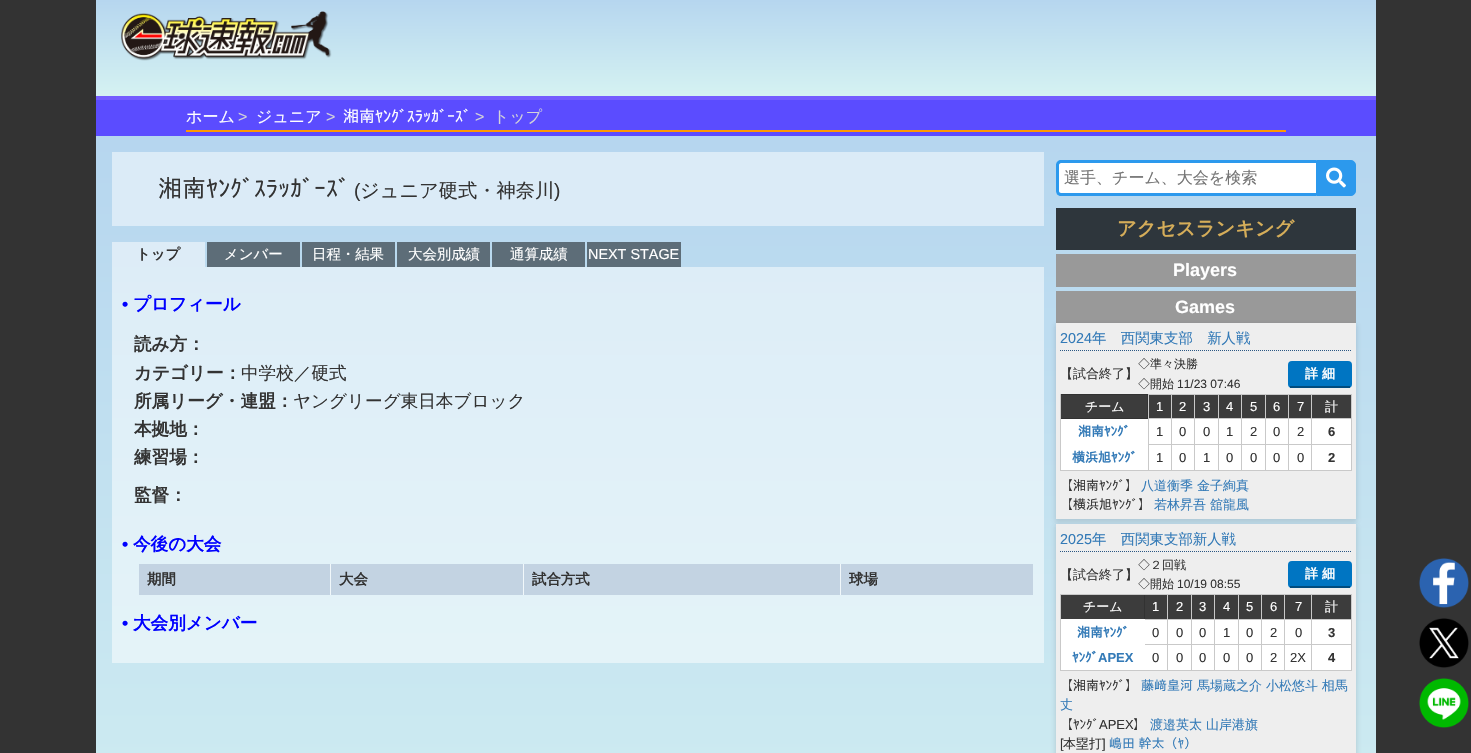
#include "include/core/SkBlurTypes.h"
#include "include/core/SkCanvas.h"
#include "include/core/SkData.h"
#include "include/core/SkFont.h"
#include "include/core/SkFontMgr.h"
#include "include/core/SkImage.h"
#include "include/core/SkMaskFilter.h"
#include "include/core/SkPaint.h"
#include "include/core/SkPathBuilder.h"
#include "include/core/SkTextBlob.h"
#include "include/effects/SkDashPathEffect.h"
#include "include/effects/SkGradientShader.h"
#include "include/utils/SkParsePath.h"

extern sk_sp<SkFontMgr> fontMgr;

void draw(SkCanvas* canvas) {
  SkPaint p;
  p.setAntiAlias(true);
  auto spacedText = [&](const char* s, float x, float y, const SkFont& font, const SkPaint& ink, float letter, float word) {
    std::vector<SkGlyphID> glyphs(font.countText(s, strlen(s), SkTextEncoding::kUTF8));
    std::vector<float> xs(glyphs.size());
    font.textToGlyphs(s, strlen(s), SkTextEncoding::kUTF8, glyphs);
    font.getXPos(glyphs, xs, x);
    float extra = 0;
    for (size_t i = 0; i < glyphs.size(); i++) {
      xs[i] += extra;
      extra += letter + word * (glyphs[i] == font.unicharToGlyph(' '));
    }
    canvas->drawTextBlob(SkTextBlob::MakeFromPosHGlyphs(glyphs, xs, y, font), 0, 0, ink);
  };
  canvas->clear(SkColorSetRGB(51, 51, 51));
  {
    const SkColor colors[] = {SkColorSetRGB(182, 214, 239), SkColorSetRGB(213, 242, 242)};
    const float stops[] = {0, 1};
    const SkPoint ends[] = {{736, 0}, {736, 96}};
    p.setShader(SkGradientShader::MakeLinear(ends, colors, stops, 2, SkTileMode::kClamp));
    p.setAlpha(255);
  }
  canvas->drawRect(SkRect::MakeLTRB(96, 0, 1376, 96), p);
  p.setShader(nullptr);
  p.setColor(SkColorSetRGB(116, 93, 255));
  canvas->drawRect(SkRect::MakeLTRB(96, 96, 1376, 100), p);
  canvas->drawImageRect(SkImages::DeferredFromEncodedData(SkData::MakeFromFileName("images/1.png")), SkRect::MakeLTRB(121, 11, 332, 61), SkSamplingOptions());
  p.setColor(SkColorSetRGB(91, 76, 255));
  canvas->drawRect(SkRect::MakeLTRB(96, 100, 1376, 136), p);
  p.setColor(SkColorSetRGB(255, 153, 0));
  canvas->drawRect(SkRect::MakeLTRB(186, 130, 1286, 132), p);
  {
    const SkColor colors[] = {SkColorSetRGB(182, 214, 239), SkColorSetRGB(213, 242, 242)};
    const float stops[] = {0, 1};
    const SkPoint ends[] = {{736, 136}, {736, 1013}};
    p.setShader(SkGradientShader::MakeLinear(ends, colors, stops, 2, SkTileMode::kClamp));
    p.setAlpha(255);
  }
  canvas->drawRect(SkRect::MakeLTRB(96, 136, 1376, 753), p);
  {
    const SkColor colors[] = {SkColorSetRGB(219, 235, 247), SkColorSetRGB(234, 249, 249)};
    const float stops[] = {0, 1};
    const SkPoint ends[] = {{736, 136}, {736, 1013}};
    p.setShader(SkGradientShader::MakeLinear(ends, colors, stops, 2, SkTileMode::kClamp));
    p.setAlpha(255);
  }
  canvas->drawRect(SkRect::MakeLTRB(112, 267, 1044, 663), p);
  p.setShader(nullptr);
  p.setColor(SkColorSetRGB(219, 235, 247));
  canvas->drawRect(SkRect::MakeLTRB(112, 152, 1044, 226), p);
  p.setColor(SkColorSetRGB(221, 236, 247));
  canvas->drawRect(SkRect::MakeLTRB(112, 242, 205, 267), p);
  p.setColor(SkColorSetRGB(93, 109, 120));
  canvas->drawRect(SkRect::MakeLTRB(207, 242, 300, 267), p);
  canvas->drawRect(SkRect::MakeLTRB(302, 242, 395, 267), p);
  canvas->drawRect(SkRect::MakeLTRB(397, 242, 490, 267), p);
  canvas->drawRect(SkRect::MakeLTRB(492, 242, 585, 267), p);
  canvas->drawRect(SkRect::MakeLTRB(587, 242, 681, 267), p);
  p.setColor(SkColorSetRGB(241, 248, 251));
  canvas->drawRect(SkRect::MakeLTRB(330, 564, 841, 595), p);
  p.setColor(SkColorSetRGB(195, 211, 226));
  canvas->drawRect(SkRect::MakeLTRB(139, 564, 330, 595), p);
  canvas->drawRect(SkRect::MakeLTRB(331, 564, 523, 595), p);
  canvas->drawRect(SkRect::MakeLTRB(524, 564, 840, 595), p);
  canvas->drawRect(SkRect::MakeLTRB(841, 564, 1033, 595), p);
  p.setColor(SK_ColorWHITE);
  canvas->drawPath(SkPathBuilder().moveTo(1061, 160).lineTo(1316, 160).lineTo(1316, 196).lineTo(1061, 196).cubicTo(1058, 196, 1056, 194, 1056, 191).lineTo(1056, 165).cubicTo(1056, 162, 1058, 160, 1061, 160).close().detach(), p);
  p.setColor(SkColorSetRGB(44, 153, 237));
  canvas->drawPath(SkPathBuilder(SkPathFillType::kEvenOdd).moveTo(1061, 160).lineTo(1316, 160).lineTo(1316, 196).lineTo(1061, 196).cubicTo(1058, 196, 1056, 194, 1056, 191).lineTo(1056, 165).cubicTo(1056, 162, 1058, 160, 1061, 160).close().moveTo(1061, 163).lineTo(1316, 163).lineTo(1316, 193).lineTo(1061, 193).cubicTo(1060, 193, 1059, 192, 1059, 191).lineTo(1059, 165).cubicTo(1059, 164, 1060, 163, 1061, 163).close().detach(), p);
  canvas->drawPath(SkPathBuilder().moveTo(1316.5f, 160.5f).lineTo(1351, 160.5f).cubicTo(1353.5f, 160.5f, 1355.5f, 162.5f, 1355.5f, 165).lineTo(1355.5f, 191).cubicTo(1355.5f, 193.5f, 1353.5f, 195.5f, 1351, 195.5f).lineTo(1316.5f, 195.5f).close().detach(), p);
  p.setStyle(SkPaint::kStroke_Style);
  p.setStrokeWidth(1);
  canvas->drawPath(SkPathBuilder().moveTo(1316.5f, 160.5f).lineTo(1351, 160.5f).cubicTo(1353.5f, 160.5f, 1355.5f, 162.5f, 1355.5f, 165).lineTo(1355.5f, 191).cubicTo(1355.5f, 193.5f, 1353.5f, 195.5f, 1351, 195.5f).lineTo(1316.5f, 195.5f).close().detach(), p);
  canvas->drawImageRect(SkImages::DeferredFromEncodedData(SkData::MakeFromFileName("images/2.png")), SkRect::MakeLTRB(1326, 167, 1346, 188), SkSamplingOptions());
  p.setStyle(SkPaint::kFill_Style);
  p.setColor(SkColorSetRGB(46, 54, 60));
  canvas->drawRect(SkRect::MakeLTRB(1056, 208, 1356, 250), p);
  p.setColor(SkColorSetRGB(153, 153, 153));
  canvas->drawRect(SkRect::MakeLTRB(1056, 254, 1356, 287), p);
  canvas->drawRect(SkRect::MakeLTRB(1056, 291, 1356, 323), p);
  p.setColor(SkColorSetARGB(41, 64, 60, 67));
  p.setMaskFilter(SkMaskFilter::MakeBlur(kNormal_SkBlurStyle, 2.5f));
  canvas->drawRect(SkRect::MakeLTRB(1055, 324, 1357, 522), p);
  p.setMaskFilter(nullptr);
  p.setColor(SkColorSetRGB(238, 238, 238));
  canvas->drawRect(SkRect::MakeLTRB(1056, 323, 1356, 519), p);
  p.setColor(SkColorSetRGB(60, 60, 60));
  canvas->drawRect(SkRect::MakeLTRB(1061, 395, 1147, 418), p);
  p.setStyle(SkPaint::kStroke_Style);
  p.setColor(SkColorSetRGB(43, 87, 131));
  p.setPathEffect(SkDashPathEffect::Make({{1, 1}}, 0));
  canvas->drawPath(SkPathBuilder().moveTo(1060, 350.5f).lineTo(1352, 350.5f).detach(), p);
  p.setPathEffect(nullptr);
  p.setStyle(SkPaint::kFill_Style);
  p.setColor(SkColorSetRGB(0, 117, 194));
  canvas->drawRoundRect(SkRect::MakeLTRB(1288, 361, 1352, 388), 4, 4, p);
  p.setColor(SkColorSetRGB(0, 76, 127));
  canvas->drawRect(SkRect::MakeLTRB(1290, 386, 1350, 388), p);
  p.setColor(SkColorSetRGB(201, 201, 201));
  canvas->drawRect(SkRect::MakeLTRB(1311, 394, 1352, 395), p);
  canvas->drawRect(SkRect::MakeLTRB(1311, 418, 1352, 419), p);
  canvas->drawRect(SkRect::MakeLTRB(1311, 444, 1352, 445), p);
  canvas->drawRect(SkRect::MakeLTRB(1351, 444, 1352, 471), p);
  canvas->drawRect(SkRect::MakeLTRB(1311, 470, 1352, 471), p);
  canvas->drawRect(SkRect::MakeLTRB(1311, 444, 1312, 471), p);
  canvas->drawRect(SkRect::MakeLTRB(1288, 444, 1312, 445), p);
  canvas->drawRect(SkRect::MakeLTRB(1311, 418, 1312, 445), p);
  canvas->drawRect(SkRect::MakeLTRB(1288, 418, 1312, 419), p);
  canvas->drawRect(SkRect::MakeLTRB(1311, 394, 1312, 419), p);
  canvas->drawRect(SkRect::MakeLTRB(1288, 394, 1312, 395), p);
  canvas->drawRect(SkRect::MakeLTRB(1288, 470, 1312, 471), p);
  canvas->drawRect(SkRect::MakeLTRB(1288, 444, 1289, 471), p);
  canvas->drawRect(SkRect::MakeLTRB(1265, 444, 1289, 445), p);
  canvas->drawRect(SkRect::MakeLTRB(1288, 418, 1289, 445), p);
  canvas->drawRect(SkRect::MakeLTRB(1265, 418, 1289, 419), p);
  canvas->drawRect(SkRect::MakeLTRB(1288, 394, 1289, 419), p);
  canvas->drawRect(SkRect::MakeLTRB(1265, 394, 1289, 395), p);
  canvas->drawRect(SkRect::MakeLTRB(1265, 470, 1289, 471), p);
  canvas->drawRect(SkRect::MakeLTRB(1265, 444, 1266, 471), p);
  canvas->drawRect(SkRect::MakeLTRB(1241, 444, 1266, 445), p);
  canvas->drawRect(SkRect::MakeLTRB(1265, 418, 1266, 445), p);
  canvas->drawRect(SkRect::MakeLTRB(1241, 418, 1266, 419), p);
  canvas->drawRect(SkRect::MakeLTRB(1265, 394, 1266, 419), p);
  canvas->drawRect(SkRect::MakeLTRB(1241, 394, 1266, 395), p);
  canvas->drawRect(SkRect::MakeLTRB(1241, 470, 1266, 471), p);
  canvas->drawRect(SkRect::MakeLTRB(1241, 444, 1242, 471), p);
  canvas->drawRect(SkRect::MakeLTRB(1218, 444, 1242, 445), p);
  canvas->drawRect(SkRect::MakeLTRB(1241, 418, 1242, 445), p);
  canvas->drawRect(SkRect::MakeLTRB(1218, 418, 1242, 419), p);
  canvas->drawRect(SkRect::MakeLTRB(1241, 394, 1242, 419), p);
  canvas->drawRect(SkRect::MakeLTRB(1218, 394, 1242, 395), p);
  canvas->drawRect(SkRect::MakeLTRB(1218, 470, 1242, 471), p);
  canvas->drawRect(SkRect::MakeLTRB(1218, 444, 1219, 471), p);
  canvas->drawRect(SkRect::MakeLTRB(1194, 444, 1219, 445), p);
  canvas->drawRect(SkRect::MakeLTRB(1218, 418, 1219, 445), p);
  canvas->drawRect(SkRect::MakeLTRB(1194, 418, 1219, 419), p);
  canvas->drawRect(SkRect::MakeLTRB(1218, 394, 1219, 419), p);
  canvas->drawRect(SkRect::MakeLTRB(1194, 394, 1219, 395), p);
  canvas->drawRect(SkRect::MakeLTRB(1194, 470, 1219, 471), p);
  canvas->drawRect(SkRect::MakeLTRB(1194, 444, 1195, 471), p);
  canvas->drawRect(SkRect::MakeLTRB(1171, 444, 1195, 445), p);
  canvas->drawRect(SkRect::MakeLTRB(1194, 418, 1195, 445), p);
  canvas->drawRect(SkRect::MakeLTRB(1171, 418, 1195, 419), p);
  canvas->drawRect(SkRect::MakeLTRB(1194, 394, 1195, 419), p);
  canvas->drawRect(SkRect::MakeLTRB(1171, 394, 1195, 395), p);
  canvas->drawRect(SkRect::MakeLTRB(1171, 470, 1195, 471), p);
  canvas->drawRect(SkRect::MakeLTRB(1171, 444, 1172, 471), p);
  canvas->drawRect(SkRect::MakeLTRB(1147, 444, 1172, 445), p);
  canvas->drawRect(SkRect::MakeLTRB(1171, 418, 1172, 445), p);
  canvas->drawRect(SkRect::MakeLTRB(1147, 418, 1172, 419), p);
  canvas->drawRect(SkRect::MakeLTRB(1171, 394, 1172, 419), p);
  canvas->drawRect(SkRect::MakeLTRB(1147, 394, 1172, 395), p);
  p.setColor(SkColorSetRGB(50, 50, 50));
  canvas->drawRect(SkRect::MakeLTRB(1061, 418, 1148, 419), p);
  canvas->drawRect(SkRect::MakeLTRB(1147, 394, 1148, 419), p);
  canvas->drawRect(SkRect::MakeLTRB(1061, 394, 1148, 395), p);
  p.setColor(SkColorSetRGB(201, 201, 201));
  canvas->drawRect(SkRect::MakeLTRB(1147, 470, 1172, 471), p);
  canvas->drawRect(SkRect::MakeLTRB(1148, 444, 1149, 471), p);
  canvas->drawRect(SkRect::MakeLTRB(1148, 418, 1149, 445), p);
  canvas->drawRect(SkRect::MakeLTRB(1148, 394, 1149, 419), p);
  p.setColor(SkColorSetRGB(60, 60, 60));
  canvas->drawRect(SkRect::MakeLTRB(1149, 395, 1171, 418), p);
  canvas->drawRect(SkRect::MakeLTRB(1172, 395, 1194, 418), p);
  canvas->drawRect(SkRect::MakeLTRB(1195, 395, 1218, 418), p);
  canvas->drawRect(SkRect::MakeLTRB(1219, 395, 1241, 418), p);
  canvas->drawRect(SkRect::MakeLTRB(1242, 395, 1265, 418), p);
  canvas->drawRect(SkRect::MakeLTRB(1266, 395, 1288, 418), p);
  canvas->drawRect(SkRect::MakeLTRB(1289, 395, 1311, 418), p);
  canvas->drawRect(SkRect::MakeLTRB(1312, 395, 1351, 418), p);
  p.setColor(SkColorSetRGB(201, 201, 201));
  canvas->drawRect(SkRect::MakeLTRB(1351, 418, 1352, 445), p);
  canvas->drawRect(SkRect::MakeLTRB(1351, 394, 1352, 419), p);
  p.setColor(SK_ColorWHITE);
  canvas->drawRect(SkRect::MakeLTRB(1061, 419, 1148, 470), p);
  canvas->drawRect(SkRect::MakeLTRB(1149, 419, 1171, 444), p);
  canvas->drawRect(SkRect::MakeLTRB(1172, 419, 1194, 444), p);
  canvas->drawRect(SkRect::MakeLTRB(1195, 419, 1218, 444), p);
  canvas->drawRect(SkRect::MakeLTRB(1219, 419, 1241, 444), p);
  canvas->drawRect(SkRect::MakeLTRB(1242, 419, 1265, 444), p);
  canvas->drawRect(SkRect::MakeLTRB(1266, 419, 1288, 444), p);
  canvas->drawRect(SkRect::MakeLTRB(1289, 419, 1311, 444), p);
  canvas->drawRect(SkRect::MakeLTRB(1312, 419, 1351, 444), p);
  p.setColor(SkColorSetRGB(201, 201, 201));
  canvas->drawRect(SkRect::MakeLTRB(1060, 470, 1149, 471), p);
  canvas->drawRect(SkRect::MakeLTRB(1060, 394, 1061, 471), p);
  p.setColor(SK_ColorWHITE);
  canvas->drawRect(SkRect::MakeLTRB(1149, 445, 1171, 470), p);
  canvas->drawRect(SkRect::MakeLTRB(1172, 445, 1194, 470), p);
  canvas->drawRect(SkRect::MakeLTRB(1195, 445, 1218, 470), p);
  canvas->drawRect(SkRect::MakeLTRB(1219, 445, 1241, 470), p);
  canvas->drawRect(SkRect::MakeLTRB(1242, 445, 1265, 470), p);
  canvas->drawRect(SkRect::MakeLTRB(1266, 445, 1288, 470), p);
  canvas->drawRect(SkRect::MakeLTRB(1289, 445, 1311, 470), p);
  canvas->drawRect(SkRect::MakeLTRB(1312, 445, 1351, 470), p);
  p.setColor(SkColorSetARGB(41, 64, 60, 67));
  p.setMaskFilter(SkMaskFilter::MakeBlur(kNormal_SkBlurStyle, 2.5f));
  canvas->drawRect(SkRect::MakeLTRB(1055, 525, 1357, 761), p);
  p.setMaskFilter(nullptr);
  p.setColor(SkColorSetRGB(238, 238, 238));
  canvas->drawRect(SkRect::MakeLTRB(1056, 524, 1356, 753), p);
  p.setColor(SkColorSetRGB(60, 60, 60));
  canvas->drawRect(SkRect::MakeLTRB(1061, 595, 1144, 619), p);
  p.setStyle(SkPaint::kStroke_Style);
  p.setColor(SkColorSetRGB(43, 87, 131));
  p.setPathEffect(SkDashPathEffect::Make({{1, 1}}, 0));
  canvas->drawPath(SkPathBuilder().moveTo(1060, 551.5f).lineTo(1352, 551.5f).detach(), p);
  p.setPathEffect(nullptr);
  p.setStyle(SkPaint::kFill_Style);
  p.setColor(SkColorSetRGB(0, 117, 194));
  canvas->drawRoundRect(SkRect::MakeLTRB(1288, 561, 1352, 588), 4, 4, p);
  p.setColor(SkColorSetRGB(0, 76, 127));
  canvas->drawRect(SkRect::MakeLTRB(1290, 586, 1350, 588), p);
  p.setColor(SkColorSetRGB(201, 201, 201));
  canvas->drawRect(SkRect::MakeLTRB(1311, 594, 1352, 595), p);
  canvas->drawRect(SkRect::MakeLTRB(1311, 619, 1352, 620), p);
  canvas->drawRect(SkRect::MakeLTRB(1311, 644, 1352, 645), p);
  canvas->drawRect(SkRect::MakeLTRB(1351, 644, 1352, 671), p);
  canvas->drawRect(SkRect::MakeLTRB(1311, 670, 1352, 671), p);
  canvas->drawRect(SkRect::MakeLTRB(1311, 644, 1312, 671), p);
  canvas->drawRect(SkRect::MakeLTRB(1284, 644, 1312, 645), p);
  canvas->drawRect(SkRect::MakeLTRB(1311, 619, 1312, 645), p);
  canvas->drawRect(SkRect::MakeLTRB(1284, 619, 1312, 620), p);
  canvas->drawRect(SkRect::MakeLTRB(1311, 594, 1312, 620), p);
  canvas->drawRect(SkRect::MakeLTRB(1284, 594, 1312, 595), p);
  canvas->drawRect(SkRect::MakeLTRB(1284, 670, 1312, 671), p);
  canvas->drawRect(SkRect::MakeLTRB(1284, 644, 1285, 671), p);
  canvas->drawRect(SkRect::MakeLTRB(1261, 644, 1285, 645), p);
  canvas->drawRect(SkRect::MakeLTRB(1284, 619, 1285, 645), p);
  canvas->drawRect(SkRect::MakeLTRB(1261, 619, 1285, 620), p);
  canvas->drawRect(SkRect::MakeLTRB(1284, 594, 1285, 620), p);
  canvas->drawRect(SkRect::MakeLTRB(1261, 594, 1285, 595), p);
  canvas->drawRect(SkRect::MakeLTRB(1261, 670, 1285, 671), p);
  canvas->drawRect(SkRect::MakeLTRB(1261, 644, 1262, 671), p);
  canvas->drawRect(SkRect::MakeLTRB(1238, 644, 1262, 645), p);
  canvas->drawRect(SkRect::MakeLTRB(1261, 619, 1262, 645), p);
  canvas->drawRect(SkRect::MakeLTRB(1238, 619, 1262, 620), p);
  canvas->drawRect(SkRect::MakeLTRB(1261, 594, 1262, 620), p);
  canvas->drawRect(SkRect::MakeLTRB(1238, 594, 1262, 595), p);
  canvas->drawRect(SkRect::MakeLTRB(1238, 670, 1262, 671), p);
  canvas->drawRect(SkRect::MakeLTRB(1238, 644, 1239, 671), p);
  canvas->drawRect(SkRect::MakeLTRB(1214, 644, 1239, 645), p);
  canvas->drawRect(SkRect::MakeLTRB(1238, 619, 1239, 645), p);
  canvas->drawRect(SkRect::MakeLTRB(1214, 619, 1239, 620), p);
  canvas->drawRect(SkRect::MakeLTRB(1238, 594, 1239, 620), p);
  canvas->drawRect(SkRect::MakeLTRB(1214, 594, 1239, 595), p);
  canvas->drawRect(SkRect::MakeLTRB(1214, 670, 1239, 671), p);
  canvas->drawRect(SkRect::MakeLTRB(1214, 644, 1215, 671), p);
  canvas->drawRect(SkRect::MakeLTRB(1191, 644, 1215, 645), p);
  canvas->drawRect(SkRect::MakeLTRB(1214, 619, 1215, 645), p);
  canvas->drawRect(SkRect::MakeLTRB(1191, 619, 1215, 620), p);
  canvas->drawRect(SkRect::MakeLTRB(1214, 594, 1215, 620), p);
  canvas->drawRect(SkRect::MakeLTRB(1191, 594, 1215, 595), p);
  canvas->drawRect(SkRect::MakeLTRB(1191, 670, 1215, 671), p);
  canvas->drawRect(SkRect::MakeLTRB(1191, 644, 1192, 671), p);
  canvas->drawRect(SkRect::MakeLTRB(1167, 644, 1192, 645), p);
  canvas->drawRect(SkRect::MakeLTRB(1191, 619, 1192, 645), p);
  canvas->drawRect(SkRect::MakeLTRB(1167, 619, 1192, 620), p);
  canvas->drawRect(SkRect::MakeLTRB(1191, 594, 1192, 620), p);
  canvas->drawRect(SkRect::MakeLTRB(1167, 594, 1192, 595), p);
  canvas->drawRect(SkRect::MakeLTRB(1167, 670, 1192, 671), p);
  canvas->drawRect(SkRect::MakeLTRB(1167, 644, 1168, 671), p);
  canvas->drawRect(SkRect::MakeLTRB(1144, 644, 1168, 645), p);
  canvas->drawRect(SkRect::MakeLTRB(1167, 619, 1168, 645), p);
  canvas->drawRect(SkRect::MakeLTRB(1144, 619, 1168, 620), p);
  canvas->drawRect(SkRect::MakeLTRB(1167, 594, 1168, 620), p);
  canvas->drawRect(SkRect::MakeLTRB(1060, 594, 1168, 595), p);
  canvas->drawRect(SkRect::MakeLTRB(1060, 670, 1168, 671), p);
  canvas->drawRect(SkRect::MakeLTRB(1060, 619, 1061, 671), p);
  canvas->drawRect(SkRect::MakeLTRB(1060, 594, 1061, 620), p);
  p.setColor(SkColorSetRGB(60, 60, 60));
  canvas->drawRect(SkRect::MakeLTRB(1145, 595, 1167, 619), p);
  p.setColor(SkColorSetRGB(50, 50, 50));
  canvas->drawRect(SkRect::MakeLTRB(1144, 595, 1145, 619), p);
  p.setColor(SkColorSetRGB(60, 60, 60));
  canvas->drawRect(SkRect::MakeLTRB(1168, 595, 1191, 619), p);
  canvas->drawRect(SkRect::MakeLTRB(1192, 595, 1214, 619), p);
  canvas->drawRect(SkRect::MakeLTRB(1215, 595, 1238, 619), p);
  canvas->drawRect(SkRect::MakeLTRB(1239, 595, 1261, 619), p);
  canvas->drawRect(SkRect::MakeLTRB(1262, 595, 1284, 619), p);
  canvas->drawRect(SkRect::MakeLTRB(1285, 595, 1311, 619), p);
  canvas->drawRect(SkRect::MakeLTRB(1312, 595, 1351, 619), p);
  p.setColor(SkColorSetRGB(201, 201, 201));
  canvas->drawRect(SkRect::MakeLTRB(1351, 619, 1352, 645), p);
  canvas->drawRect(SkRect::MakeLTRB(1351, 594, 1352, 620), p);
  p.setColor(SK_ColorWHITE);
  canvas->drawRect(SkRect::MakeLTRB(1061, 619, 1145, 670), p);
  canvas->drawRect(SkRect::MakeLTRB(1145, 620, 1167, 644), p);
  canvas->drawRect(SkRect::MakeLTRB(1168, 620, 1191, 644), p);
  canvas->drawRect(SkRect::MakeLTRB(1192, 620, 1214, 644), p);
  canvas->drawRect(SkRect::MakeLTRB(1215, 620, 1238, 644), p);
  canvas->drawRect(SkRect::MakeLTRB(1239, 620, 1261, 644), p);
  canvas->drawRect(SkRect::MakeLTRB(1262, 620, 1284, 644), p);
  canvas->drawRect(SkRect::MakeLTRB(1285, 620, 1311, 644), p);
  canvas->drawRect(SkRect::MakeLTRB(1312, 620, 1351, 644), p);
  canvas->drawRect(SkRect::MakeLTRB(1145, 645, 1167, 670), p);
  canvas->drawRect(SkRect::MakeLTRB(1168, 645, 1191, 670), p);
  canvas->drawRect(SkRect::MakeLTRB(1192, 645, 1214, 670), p);
  canvas->drawRect(SkRect::MakeLTRB(1215, 645, 1238, 670), p);
  canvas->drawRect(SkRect::MakeLTRB(1239, 645, 1261, 670), p);
  canvas->drawRect(SkRect::MakeLTRB(1262, 645, 1284, 670), p);
  canvas->drawRect(SkRect::MakeLTRB(1285, 645, 1311, 670), p);
  canvas->drawRect(SkRect::MakeLTRB(1312, 645, 1351, 670), p);
  canvas->drawImageRect(SkImages::DeferredFromEncodedData(SkData::MakeFromFileName("images/3.png")), SkRect::MakeLTRB(1419, 558, 1469, 608), SkSamplingOptions());
  canvas->drawImageRect(SkImages::DeferredFromEncodedData(SkData::MakeFromFileName("images/4.png")), SkRect::MakeLTRB(1419, 618, 1469, 668), SkSamplingOptions());
  canvas->drawImageRect(SkImages::DeferredFromEncodedData(SkData::MakeFromFileName("images/5.png")), SkRect::MakeLTRB(1419, 678, 1469, 728), SkSamplingOptions());
  SkFont font1(fontMgr->matchFamilyStyle("WenQuanYi Zen Hei", SkFontStyle(500, SkFontStyle::kNormal_Width, SkFontStyle::kUpright_Slant)), 16);
  font1.setSubpixel(true);
  canvas->drawString("ホーム", 186, 122, font1, p);
  SkFont font2(fontMgr->matchFamilyStyle("Liberation Sans", SkFontStyle::Normal()), 16);
  font2.setSubpixel(true);
  p.setColor(SkColorSetRGB(211, 211, 216));
  canvas->drawString(">", 238, 122, font2, p);
  p.setColor(SK_ColorWHITE);
  canvas->drawString("ジュニア", 256, 122, font1, p);
  p.setColor(SkColorSetRGB(211, 211, 216));
  canvas->drawString(">", 326, 122, font2, p);
  SkFont font3(fontMgr->matchFamilyStyle("IPAGothic", SkFontStyle::Normal()), 16);
  font3.setSubpixel(true);
  p.setColor(SK_ColorWHITE);
  canvas->drawString("湘南ﾔﾝｸﾞｽﾗｯｶﾞｰｽﾞ", 343, 122, font3, p);
  p.setColor(SkColorSetRGB(211, 211, 216));
  canvas->drawString(">", 475, 122, font2, p);
  canvas->drawString("トップ", 493, 122, font1, p);
  SkFont font4(fontMgr->matchFamilyStyle("IPAGothic", SkFontStyle::Normal()), 24);
  font4.setSubpixel(true);
  p.setColor(SkColorSetRGB(51, 51, 51));
  canvas->drawString("湘南ﾔﾝｸﾞｽﾗｯｶﾞｰｽﾞ", 158, 197, font4, p);
  SkFont font5(fontMgr->matchFamilyStyle("Liberation Sans", SkFontStyle::Normal()), 19.25f);
  font5.setSubpixel(true);
  canvas->drawString("(", 354, 197, font5, p);
  SkFont font6(fontMgr->matchFamilyStyle("WenQuanYi Zen Hei", SkFontStyle(500, SkFontStyle::kNormal_Width, SkFontStyle::kUpright_Slant)), 19.25f);
  font6.setSubpixel(true);
  canvas->drawString("ジュニア硬式・神奈川", 360, 197, font6, p);
  canvas->drawString(")", 554, 197, font5, p);
  SkFont font7(fontMgr->matchFamilyStyle("WenQuanYi Zen Hei", SkFontStyle::Bold()), 14.4f);
  font7.setSubpixel(true);
  canvas->drawString("トップ", 136, 259, font7, p);
  SkFont font8(fontMgr->matchFamilyStyle("WenQuanYi Zen Hei", SkFontStyle(500, SkFontStyle::kNormal_Width, SkFontStyle::kUpright_Slant)), 14.4f);
  font8.setSubpixel(true);
  p.setColor(SK_ColorWHITE);
  canvas->drawString("メンバー", 224, 259, font8, p);
  canvas->drawString("日程・結果", 312, 259, font8, p);
  canvas->drawString("大会別成績", 408, 259, font8, p);
  canvas->drawString("通算成績", 510, 259, font8, p);
  SkFont font9(fontMgr->matchFamilyStyle("Liberation Sans", SkFontStyle::Normal()), 14.4f);
  font9.setSubpixel(true);
  canvas->drawString("NEXT STAGE", 588, 259, font9, p);
  SkFont font10(fontMgr->matchFamilyStyle("Liberation Sans", SkFontStyle::Bold()), 17.6f);
  font10.setSubpixel(true);
  p.setColor(SkColorSetRGB(0, 0, 255));
  canvas->drawString("•", 122, 310, font10, p);
  SkFont font11(fontMgr->matchFamilyStyle("WenQuanYi Zen Hei", SkFontStyle::Bold()), 17.6f);
  font11.setSubpixel(true);
  canvas->drawString("プロフィール", 133, 310, font11, p);
  p.setColor(SkColorSetRGB(51, 51, 51));
  canvas->drawString("読み方：", 134, 350, font11, p);
  canvas->drawString("カテゴリー：", 134, 379, font11, p);
  SkFont font12(fontMgr->matchFamilyStyle("WenQuanYi Zen Hei", SkFontStyle(500, SkFontStyle::kNormal_Width, SkFontStyle::kUpright_Slant)), 17.6f);
  font12.setSubpixel(true);
  canvas->drawString("中学校／硬式", 241, 379, font12, p);
  canvas->drawString("所属リーグ・連盟：", 134, 407, font11, p);
  canvas->drawString("ヤングリーグ東日本ブロック", 293, 407, font12, p);
  canvas->drawString("本拠地：", 134, 435, font11, p);
  canvas->drawString("練習場：", 134, 463, font11, p);
  canvas->drawString("監督：", 134, 501, font11, p);
  p.setColor(SkColorSetRGB(0, 0, 255));
  canvas->drawString("•", 122, 550, font10, p);
  canvas->drawString("今後の大会", 133, 550, font11, p);
  p.setColor(SkColorSetRGB(51, 51, 51));
  canvas->drawString("期間", 147, 584, font7, p);
  canvas->drawString("大会", 339, 584, font7, p);
  canvas->drawString("試合方式", 532, 584, font7, p);
  canvas->drawString("球場", 849, 584, font7, p);
  p.setColor(SkColorSetRGB(0, 0, 255));
  canvas->drawString("•", 122, 629, font10, p);
  canvas->drawString("大会別メンバー", 133, 629, font11, p);
  p.setColor(SkColorSetRGB(117, 117, 117));
  canvas->drawString("選手、チーム、大会を検索", 1064, 183, font1, p);
  SkFont font13(fontMgr->matchFamilyStyle("WenQuanYi Zen Hei", SkFontStyle::Bold()), 19.25f);
  font13.setSubpixel(true);
  p.setColor(SkColorSetRGB(213, 173, 89));
  canvas->drawString("アクセスランキング", 1117, 235, font13, p);
  SkFont font14(fontMgr->matchFamilyStyle("Liberation Sans", SkFontStyle::Bold()), 18);
  font14.setSubpixel(true);
  p.setColor(SK_ColorWHITE);
  canvas->drawString("Players", 1173, 276, font14, p);
  canvas->drawString("Games", 1175, 313, font14, p);
  p.setColor(SkColorSetRGB(51, 122, 183));
  canvas->drawString("2024", 1060, 343, font9, p);
  canvas->drawString("年　西関東支部　新人戦", 1092, 343, font8, p);
  SkFont font15(fontMgr->matchFamilyStyle("WenQuanYi Zen Hei", SkFontStyle(500, SkFontStyle::kNormal_Width, SkFontStyle::kUpright_Slant)), 13);
  font15.setSubpixel(true);
  p.setColor(SkColorSetRGB(51, 51, 51));
  canvas->drawString("【試合終了】", 1060, 378, font15, p);
  SkFont font16(fontMgr->matchFamilyStyle("WenQuanYi Zen Hei", SkFontStyle(500, SkFontStyle::kNormal_Width, SkFontStyle::kUpright_Slant)), 12);
  font16.setSubpixel(true);
  canvas->drawString("◇準々決勝", 1138, 368, font16, p);
  canvas->drawString("◇開始", 1138, 388, font16, p);
  SkFont font17(fontMgr->matchFamilyStyle("Liberation Sans", SkFontStyle::Normal()), 12);
  font17.setSubpixel(true);
  canvas->drawString("11/23 07:46", 1177, 388, font17, p);
  SkFont font18(fontMgr->matchFamilyStyle("WenQuanYi Zen Hei", SkFontStyle::Bold()), 13);
  font18.setSubpixel(true);
  p.setColor(SK_ColorWHITE);
  canvas->drawString("詳 細", 1305, 378, font18, p);
  canvas->drawString("チーム", 1085, 411, font15, p);
  SkFont font19(fontMgr->matchFamilyStyle("Liberation Sans", SkFontStyle::Normal()), 13);
  font19.setSubpixel(true);
  canvas->drawString("1", 1156, 411, font19, p);
  canvas->drawString("2", 1179, 411, font19, p);
  canvas->drawString("3", 1203, 411, font19, p);
  canvas->drawString("4", 1226, 411, font19, p);
  canvas->drawString("5", 1250, 411, font19, p);
  canvas->drawString("6", 1273, 411, font19, p);
  canvas->drawString("7", 1297, 411, font19, p);
  canvas->drawString("計", 1325, 411, font15, p);
  SkFont font20(fontMgr->matchFamilyStyle("IPAGothic", SkFontStyle::Bold()), 13);
  font20.setSubpixel(true);
  p.setColor(SkColorSetRGB(51, 122, 183));
  canvas->drawString("湘南ﾔﾝｸﾞ", 1078, 436, font20, p);
  p.setColor(SkColorSetRGB(51, 51, 51));
  canvas->drawString("1", 1156, 436, font19, p);
  canvas->drawString("0", 1179, 436, font19, p);
  canvas->drawString("0", 1203, 436, font19, p);
  canvas->drawString("1", 1226, 436, font19, p);
  canvas->drawString("2", 1250, 436, font19, p);
  canvas->drawString("0", 1273, 436, font19, p);
  canvas->drawString("2", 1297, 436, font19, p);
  SkFont font21(fontMgr->matchFamilyStyle("Liberation Sans", SkFontStyle::Bold()), 13);
  font21.setSubpixel(true);
  canvas->drawString("6", 1328, 436, font21, p);
  p.setColor(SkColorSetRGB(51, 122, 183));
  canvas->drawString("横浜旭ﾔﾝｸﾞ", 1072, 462, font20, p);
  p.setColor(SkColorSetRGB(51, 51, 51));
  canvas->drawString("1", 1156, 462, font19, p);
  canvas->drawString("0", 1179, 462, font19, p);
  canvas->drawString("1", 1203, 462, font19, p);
  canvas->drawString("0", 1226, 462, font19, p);
  canvas->drawString("0", 1250, 462, font19, p);
  canvas->drawString("0", 1273, 462, font19, p);
  canvas->drawString("0", 1297, 462, font19, p);
  canvas->drawString("2", 1328, 462, font21, p);
  SkFont font22(fontMgr->matchFamilyStyle("IPAGothic", SkFontStyle::Normal()), 13);
  font22.setSubpixel(true);
  canvas->drawString("【湘南ﾔﾝｸﾞ】", 1060, 490, font22, p);
  p.setColor(SkColorSetRGB(51, 122, 183));
  canvas->drawString("八道衡季 金子絢真", 1141, 490, font15, p);
  p.setColor(SkColorSetRGB(51, 51, 51));
  canvas->drawString("【横浜旭ﾔﾝｸﾞ】", 1060, 509, font22, p);
  p.setColor(SkColorSetRGB(51, 122, 183));
  canvas->drawString("若林昇吾 舘龍風", 1154, 509, font15, p);
  canvas->drawString("2025", 1060, 544, font9, p);
  canvas->drawString("年　西関東支部新人戦", 1092, 544, font8, p);
  p.setColor(SkColorSetRGB(51, 51, 51));
  canvas->drawString("【試合終了】", 1060, 579, font15, p);
  canvas->drawString("◇２回戦", 1138, 569, font16, p);
  canvas->drawString("◇開始", 1138, 588, font16, p);
  canvas->drawString("10/19 08:55", 1177, 588, font17, p);
  p.setColor(SK_ColorWHITE);
  canvas->drawString("詳 細", 1305, 578, font18, p);
  canvas->drawString("チーム", 1083, 611, font15, p);
  canvas->drawString("1", 1152, 611, font19, p);
  canvas->drawString("2", 1176, 611, font19, p);
  canvas->drawString("3", 1199, 611, font19, p);
  canvas->drawString("4", 1223, 611, font19, p);
  canvas->drawString("5", 1246, 611, font19, p);
  canvas->drawString("6", 1270, 611, font19, p);
  canvas->drawString("7", 1295, 611, font19, p);
  canvas->drawString("計", 1325, 611, font15, p);
  p.setColor(SkColorSetRGB(51, 122, 183));
  canvas->drawString("湘南ﾔﾝｸﾞ", 1077, 637, font20, p);
  p.setColor(SkColorSetRGB(51, 51, 51));
  canvas->drawString("0", 1152, 637, font19, p);
  canvas->drawString("0", 1176, 637, font19, p);
  canvas->drawString("0", 1199, 637, font19, p);
  canvas->drawString("1", 1223, 637, font19, p);
  canvas->drawString("0", 1246, 637, font19, p);
  canvas->drawString("2", 1270, 637, font19, p);
  canvas->drawString("0", 1295, 637, font19, p);
  canvas->drawString("3", 1328, 637, font21, p);
  p.setColor(SkColorSetRGB(51, 122, 183));
  canvas->drawString("ﾔﾝｸﾞ", 1072, 662, font20, p);
  canvas->drawString("APEX", 1098, 662, font21, p);
  p.setColor(SkColorSetRGB(51, 51, 51));
  canvas->drawString("0", 1152, 662, font19, p);
  canvas->drawString("0", 1176, 662, font19, p);
  canvas->drawString("0", 1199, 662, font19, p);
  canvas->drawString("0", 1223, 662, font19, p);
  canvas->drawString("0", 1246, 662, font19, p);
  canvas->drawString("2", 1270, 662, font19, p);
  canvas->drawString("2X", 1290, 662, font19, p);
  canvas->drawString("4", 1328, 662, font21, p);
  canvas->drawString("【湘南ﾔﾝｸﾞ】", 1060, 690, font22, p);
  p.setColor(SkColorSetRGB(51, 122, 183));
  canvas->drawString("藤﨑皇河", 1141, 690, font22, p);
  canvas->drawString("馬場蔵之介 小松悠斗 相馬", 1197, 690, font15, p);
  canvas->drawString("丈", 1060, 709, font15, p);
  p.setColor(SkColorSetRGB(51, 51, 51));
  canvas->drawString("【ﾔﾝｸﾞ", 1060, 729, font22, p);
  canvas->drawString("APEX", 1099, 729, font19, p);
  canvas->drawString("】", 1133, 729, font22, p);
  p.setColor(SkColorSetRGB(51, 122, 183));
  canvas->drawString("渡邉英太 山岸港旗", 1150, 729, font15, p);
  p.setColor(SkColorSetRGB(51, 51, 51));
  canvas->drawString("[", 1060, 748, font19, p);
  canvas->drawString("本塁打", 1063, 748, font15, p);
  canvas->drawString("]", 1102, 748, font19, p);
  p.setColor(SkColorSetRGB(51, 122, 183));
  spacedText("嶋田 幹太（ﾔ）", 1109, 748, font22, p, 0, -3);
}
